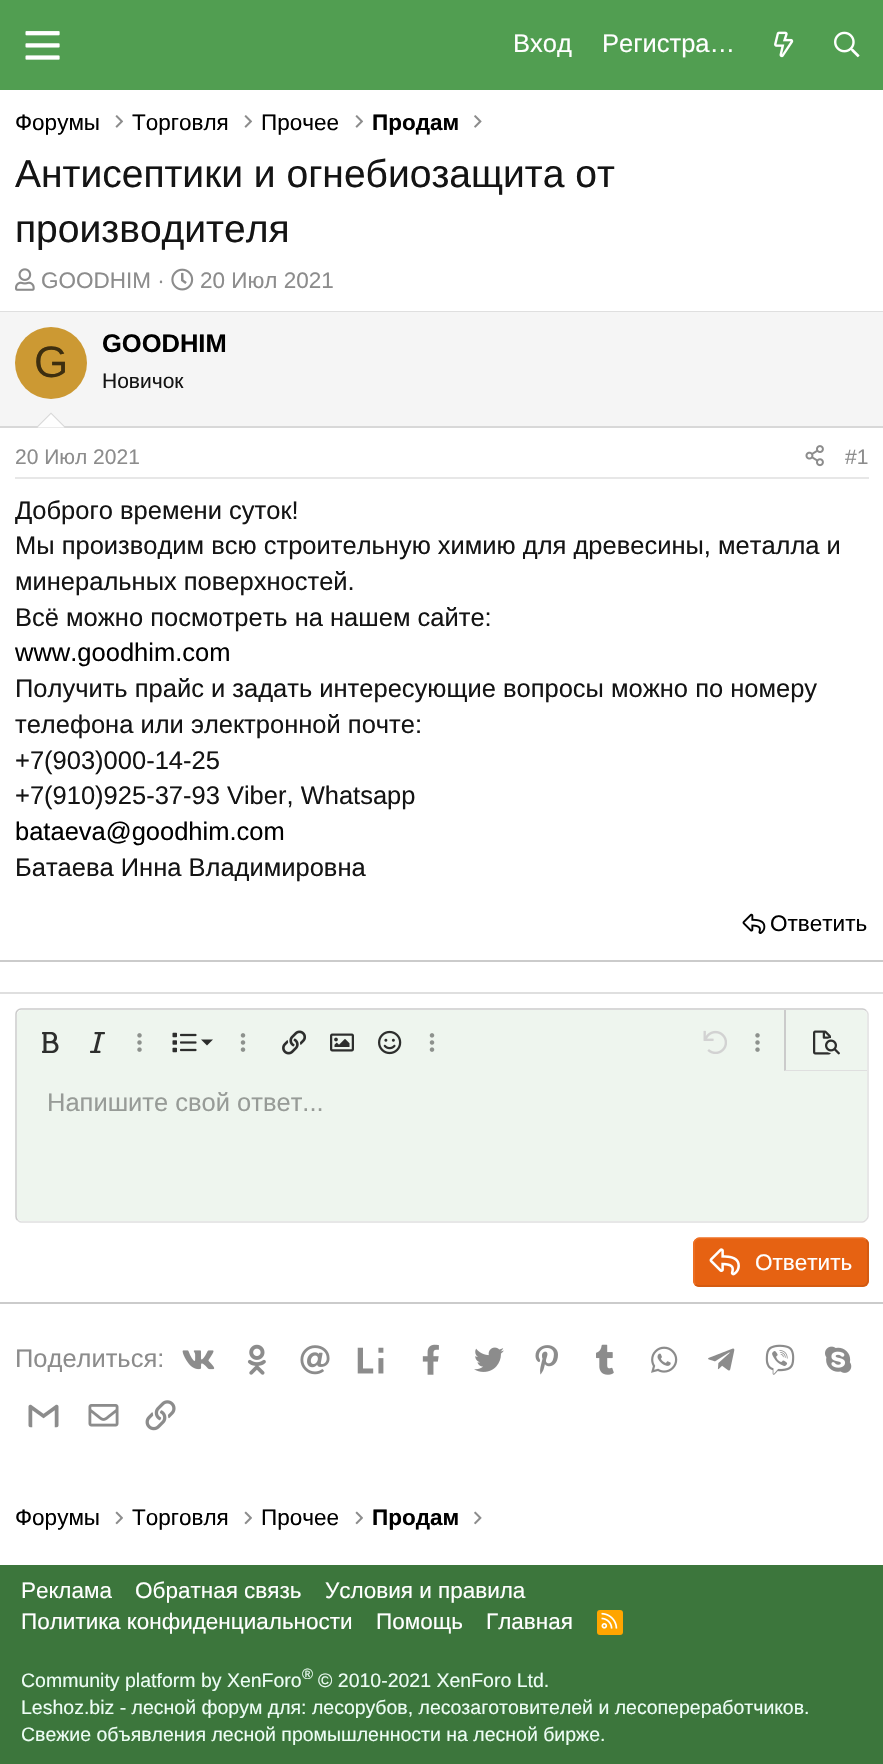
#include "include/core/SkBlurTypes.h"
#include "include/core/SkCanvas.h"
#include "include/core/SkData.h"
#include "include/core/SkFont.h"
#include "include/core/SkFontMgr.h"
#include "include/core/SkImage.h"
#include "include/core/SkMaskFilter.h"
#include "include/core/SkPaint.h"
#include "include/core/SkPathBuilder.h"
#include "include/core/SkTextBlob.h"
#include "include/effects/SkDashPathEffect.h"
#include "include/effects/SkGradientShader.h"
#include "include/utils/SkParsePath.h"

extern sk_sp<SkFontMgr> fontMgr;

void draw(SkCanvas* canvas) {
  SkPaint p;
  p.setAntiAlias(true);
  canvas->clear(SK_ColorWHITE);
  p.setColor(SkColorSetRGB(81, 158, 81));
  canvas->drawRect(SkRect::MakeLTRB(0, 0, 883, 90), p);
  canvas->drawImageRect(SkImages::DeferredFromEncodedData(SkData::MakeFromFileName("images/1.png")), SkRect::MakeLTRB(25, 31, 60, 60), SkSamplingOptions());
  canvas->drawImageRect(SkImages::DeferredFromEncodedData(SkData::MakeFromFileName("images/2.png")), SkRect::MakeLTRB(774, 31, 794, 58), SkSamplingOptions());
  canvas->drawImageRect(SkImages::DeferredFromEncodedData(SkData::MakeFromFileName("images/3.png")), SkRect::MakeLTRB(834, 31, 860, 58), SkSamplingOptions());
  canvas->drawImageRect(SkImages::DeferredFromEncodedData(SkData::MakeFromFileName("images/4.png")), SkRect::MakeLTRB(115, 115, 124, 128), SkSamplingOptions());
  canvas->drawImageRect(SkImages::DeferredFromEncodedData(SkData::MakeFromFileName("images/4.png")), SkRect::MakeLTRB(244, 115, 253, 128), SkSamplingOptions());
  canvas->drawImageRect(SkImages::DeferredFromEncodedData(SkData::MakeFromFileName("images/4.png")), SkRect::MakeLTRB(355, 115, 364, 128), SkSamplingOptions());
  canvas->drawImageRect(SkImages::DeferredFromEncodedData(SkData::MakeFromFileName("images/5.png")), SkRect::MakeLTRB(474, 115, 482, 128), SkSamplingOptions());
  canvas->drawImageRect(SkImages::DeferredFromEncodedData(SkData::MakeFromFileName("images/6.png")), SkRect::MakeLTRB(15, 268, 35, 291), SkSamplingOptions());
  canvas->drawImageRect(SkImages::DeferredFromEncodedData(SkData::MakeFromFileName("images/7.png")), SkRect::MakeLTRB(171, 268, 194, 291), SkSamplingOptions());
  p.setColor(SkColorSetRGB(223, 223, 223));
  canvas->drawRect(SkRect::MakeLTRB(0, 311, 883, 312), p);
  p.setColor(SkColorSetRGB(203, 203, 203));
  canvas->drawRect(SkRect::MakeLTRB(0, 960, 883, 962), p);
  p.setColor(SkColorSetRGB(245, 245, 245));
  canvas->drawRect(SkRect::MakeLTRB(0, 312, 883, 426), p);
  p.setColor(SkColorSetRGB(216, 216, 216));
  canvas->drawRect(SkRect::MakeLTRB(0, 426, 883, 428), p);
  p.setColor(SkColorSetRGB(204, 153, 51));
  canvas->drawCircle(51, 363, 36, p);
  p.setColor(SkColorSetRGB(216, 216, 216));
  canvas->drawPath(SkPathBuilder().moveTo(66, 427.5f).lineTo(36, 427.5f).lineTo(51, 412.5f).close().detach(), p);
  p.setColor(SkColorSetRGB(254, 254, 254));
  canvas->drawPath(SkPathBuilder().moveTo(64.5f, 427.5f).lineTo(37.5f, 427.5f).lineTo(51, 414).close().detach(), p);
  p.setColor(SkColorSetRGB(231, 231, 231));
  canvas->drawRect(SkRect::MakeLTRB(15, 477, 869, 479), p);
  canvas->drawImageRect(SkImages::DeferredFromEncodedData(SkData::MakeFromFileName("images/8.png")), SkRect::MakeLTRB(805, 445, 824, 467), SkSamplingOptions());
  canvas->drawImageRect(SkImages::DeferredFromEncodedData(SkData::MakeFromFileName("images/9.png")), SkRect::MakeLTRB(742, 913, 766, 934), SkSamplingOptions());
  p.setColor(SkColorSetRGB(223, 223, 223));
  canvas->drawRect(SkRect::MakeLTRB(0, 992, 883, 994), p);
  p.setColor(SkColorSetRGB(203, 203, 203));
  canvas->drawRect(SkRect::MakeLTRB(0, 1302, 883, 1304), p);
  p.setColor(SkColorSetRGB(238, 245, 238));
  canvas->drawRoundRect(SkRect::MakeLTRB(17, 1010, 867, 1221), 5, 5, p);
  p.setStyle(SkPaint::kStroke_Style);
  p.setStrokeWidth(1.5f);
  p.setColor(SkColorSetRGB(223, 223, 223));
  canvas->drawPath(SkPathBuilder().moveTo(866, 1010.5f).cubicTo(867, 1011.5f, 868, 1012.5f, 868, 1014).lineTo(868, 1216.5f).cubicTo(868, 1218, 867, 1219, 866, 1220).cubicTo(865, 1221, 864, 1222, 862.5f, 1222).lineTo(21, 1222).cubicTo(19.5f, 1222, 18.5f, 1221, 17.5f, 1220).detach(), p);
  p.setColor(SkColorSetRGB(203, 203, 203));
  canvas->drawPath(SkPathBuilder().moveTo(17.5f, 1220).cubicTo(16.5f, 1219, 16, 1218, 16, 1216.5f).lineTo(16, 1014).cubicTo(16, 1012.5f, 16.5f, 1011.5f, 17.5f, 1010.5f).cubicTo(18.5f, 1009.5f, 19.5f, 1009, 21, 1009).lineTo(862.5f, 1009).cubicTo(864, 1009, 865, 1009.5f, 866, 1010.5f).detach(), p);
  canvas->drawImageRect(SkImages::DeferredFromEncodedData(SkData::MakeFromFileName("images/10.png")), SkRect::MakeLTRB(42, 1032, 59, 1053), SkSamplingOptions());
  canvas->drawImageRect(SkImages::DeferredFromEncodedData(SkData::MakeFromFileName("images/11.png")), SkRect::MakeLTRB(90, 1032, 105, 1053), SkSamplingOptions());
  canvas->drawImageRect(SkImages::DeferredFromEncodedData(SkData::MakeFromFileName("images/12.png")), SkRect::MakeLTRB(137, 1033, 142, 1052), SkSamplingOptions());
  canvas->drawImageRect(SkImages::DeferredFromEncodedData(SkData::MakeFromFileName("images/13.png")), SkRect::MakeLTRB(172, 1032, 197, 1053), SkSamplingOptions());
  p.setStyle(SkPaint::kFill_Style);
  p.setColor(SkColorSetRGB(44, 45, 44));
  canvas->drawPath(SkPathBuilder().moveTo(201, 1039.5f).lineTo(213, 1039.5f).lineTo(207, 1045.5f).close().detach(), p);
  canvas->drawImageRect(SkImages::DeferredFromEncodedData(SkData::MakeFromFileName("images/14.png")), SkRect::MakeLTRB(240, 1033, 246, 1052), SkSamplingOptions());
  canvas->drawImageRect(SkImages::DeferredFromEncodedData(SkData::MakeFromFileName("images/15.png")), SkRect::MakeLTRB(282, 1030, 306, 1055), SkSamplingOptions());
  canvas->drawImageRect(SkImages::DeferredFromEncodedData(SkData::MakeFromFileName("images/16.png")), SkRect::MakeLTRB(330, 1033, 354, 1052), SkSamplingOptions());
  canvas->drawImageRect(SkImages::DeferredFromEncodedData(SkData::MakeFromFileName("images/17.png")), SkRect::MakeLTRB(378, 1030, 402, 1055), SkSamplingOptions());
  canvas->drawImageRect(SkImages::DeferredFromEncodedData(SkData::MakeFromFileName("images/14.png")), SkRect::MakeLTRB(429, 1033, 435, 1052), SkSamplingOptions());
  canvas->drawImageRect(SkImages::DeferredFromEncodedData(SkData::MakeFromFileName("images/18.png")), SkRect::MakeLTRB(703, 1030, 727, 1054), SkSamplingOptions());
  canvas->drawImageRect(SkImages::DeferredFromEncodedData(SkData::MakeFromFileName("images/12.png")), SkRect::MakeLTRB(755, 1033, 760, 1052), SkSamplingOptions());
  p.setColor(SkColorSetRGB(223, 223, 223));
  canvas->drawPath(SkPathBuilder().moveTo(867, 1071).lineTo(867, 1070).lineTo(786, 1070).lineTo(784, 1071).close().detach(), p);
  p.setColor(SkColorSetRGB(203, 203, 203));
  canvas->drawPath(SkPathBuilder().moveTo(786, 1010).lineTo(784, 1010).lineTo(784, 1071).lineTo(786, 1070).close().detach(), p);
  canvas->drawImageRect(SkImages::DeferredFromEncodedData(SkData::MakeFromFileName("images/19.png")), SkRect::MakeLTRB(813, 1030, 840, 1055), SkSamplingOptions());
  p.setColor(SkColorSetRGB(230, 98, 18));
  canvas->drawRoundRect(SkRect::MakeLTRB(693, 1238, 869, 1287), 6, 6, p);
  p.setStyle(SkPaint::kStroke_Style);
  p.setColor(SkColorSetRGB(206, 88, 16));
  canvas->drawPath(SkPathBuilder().moveTo(866, 1240).cubicTo(867, 1241, 868, 1242, 868, 1243.5f).lineTo(868, 1281).cubicTo(868, 1282.5f, 867, 1283.5f, 866, 1284.5f).cubicTo(865, 1285.5f, 864, 1286, 862.5f, 1286).lineTo(699, 1286).cubicTo(697.5f, 1286, 696.5f, 1285.5f, 695.5f, 1284.5f).detach(), p);
  p.setColor(SkColorSetRGB(238, 112, 36));
  canvas->drawPath(SkPathBuilder().moveTo(695.5f, 1284.5f).cubicTo(694.5f, 1283.5f, 694, 1282.5f, 694, 1281).lineTo(694, 1243.5f).cubicTo(694, 1242, 694.5f, 1241, 695.5f, 1240).cubicTo(696.5f, 1239, 697.5f, 1238, 699, 1238).lineTo(862.5f, 1238).cubicTo(864, 1238, 865, 1239, 866, 1240).detach(), p);
  canvas->drawImageRect(SkImages::DeferredFromEncodedData(SkData::MakeFromFileName("images/20.png")), SkRect::MakeLTRB(709, 1248, 740, 1276), SkSamplingOptions());
  canvas->drawImageRect(SkImages::DeferredFromEncodedData(SkData::MakeFromFileName("images/21.png")), SkRect::MakeLTRB(182, 1350, 215, 1370), SkSamplingOptions());
  canvas->drawImageRect(SkImages::DeferredFromEncodedData(SkData::MakeFromFileName("images/22.png")), SkRect::MakeLTRB(247, 1344, 266, 1375), SkSamplingOptions());
  canvas->drawImageRect(SkImages::DeferredFromEncodedData(SkData::MakeFromFileName("images/23.png")), SkRect::MakeLTRB(300, 1345, 330, 1375), SkSamplingOptions());
  canvas->drawImageRect(SkImages::DeferredFromEncodedData(SkData::MakeFromFileName("images/24.png")), SkRect::MakeLTRB(357, 1347, 384, 1374), SkSamplingOptions());
  canvas->drawImageRect(SkImages::DeferredFromEncodedData(SkData::MakeFromFileName("images/25.png")), SkRect::MakeLTRB(422, 1344, 439, 1375), SkSamplingOptions());
  canvas->drawImageRect(SkImages::DeferredFromEncodedData(SkData::MakeFromFileName("images/26.png")), SkRect::MakeLTRB(474, 1347, 504, 1372), SkSamplingOptions());
  canvas->drawImageRect(SkImages::DeferredFromEncodedData(SkData::MakeFromFileName("images/27.png")), SkRect::MakeLTRB(535, 1345, 558, 1375), SkSamplingOptions());
  canvas->drawImageRect(SkImages::DeferredFromEncodedData(SkData::MakeFromFileName("images/28.png")), SkRect::MakeLTRB(596, 1344, 614, 1375), SkSamplingOptions());
  canvas->drawImageRect(SkImages::DeferredFromEncodedData(SkData::MakeFromFileName("images/29.png")), SkRect::MakeLTRB(651, 1346, 678, 1373), SkSamplingOptions());
  canvas->drawImageRect(SkImages::DeferredFromEncodedData(SkData::MakeFromFileName("images/30.png")), SkRect::MakeLTRB(708, 1348, 735, 1371), SkSamplingOptions());
  canvas->drawImageRect(SkImages::DeferredFromEncodedData(SkData::MakeFromFileName("images/31.png")), SkRect::MakeLTRB(765, 1344, 795, 1375), SkSamplingOptions());
  canvas->drawImageRect(SkImages::DeferredFromEncodedData(SkData::MakeFromFileName("images/32.png")), SkRect::MakeLTRB(825, 1346, 852, 1373), SkSamplingOptions());
  canvas->drawImageRect(SkImages::DeferredFromEncodedData(SkData::MakeFromFileName("images/33.png")), SkRect::MakeLTRB(28, 1404, 59, 1428), SkSamplingOptions());
  canvas->drawImageRect(SkImages::DeferredFromEncodedData(SkData::MakeFromFileName("images/34.png")), SkRect::MakeLTRB(88, 1404, 119, 1427), SkSamplingOptions());
  canvas->drawImageRect(SkImages::DeferredFromEncodedData(SkData::MakeFromFileName("images/35.png")), SkRect::MakeLTRB(145, 1400, 176, 1431), SkSamplingOptions());
  canvas->drawImageRect(SkImages::DeferredFromEncodedData(SkData::MakeFromFileName("images/36.png")), SkRect::MakeLTRB(115, 1511, 123, 1525), SkSamplingOptions());
  canvas->drawImageRect(SkImages::DeferredFromEncodedData(SkData::MakeFromFileName("images/36.png")), SkRect::MakeLTRB(244, 1511, 252, 1525), SkSamplingOptions());
  canvas->drawImageRect(SkImages::DeferredFromEncodedData(SkData::MakeFromFileName("images/36.png")), SkRect::MakeLTRB(355, 1511, 363, 1525), SkSamplingOptions());
  canvas->drawImageRect(SkImages::DeferredFromEncodedData(SkData::MakeFromFileName("images/37.png")), SkRect::MakeLTRB(474, 1511, 482, 1525), SkSamplingOptions());
  p.setStyle(SkPaint::kFill_Style);
  p.setColor(SkColorSetRGB(60, 118, 60));
  canvas->drawRect(SkRect::MakeLTRB(0, 1565, 883, 1764), p);
  p.setColor(SkColorSetRGB(255, 165, 0));
  canvas->drawRoundRect(SkRect::MakeLTRB(597, 1610, 623, 1635), 3, 3, p);
  canvas->drawImageRect(SkImages::DeferredFromEncodedData(SkData::MakeFromFileName("images/38.png")), SkRect::MakeLTRB(601, 1612, 618, 1629), SkSamplingOptions());
  SkFont font1(fontMgr->matchFamilyStyle("Liberation Sans", SkFontStyle::Normal()), 25.5f);
  font1.setSubpixel(true);
  p.setColor(SK_ColorWHITE);
  canvas->drawString("Вход", 513, 52, font1, p);
  canvas->drawString("Регистра…", 602, 52, font1, p);
  SkFont font2(fontMgr->matchFamilyStyle("Liberation Sans", SkFontStyle::Normal()), 22.5f);
  font2.setSubpixel(true);
  p.setColor(SK_ColorBLACK);
  canvas->drawString("Форумы", 15, 130, font2, p);
  canvas->drawString("Торговля", 132, 130, font2, p);
  canvas->drawString("Прочее", 261, 130, font2, p);
  SkFont font3(fontMgr->matchFamilyStyle("Liberation Sans", SkFontStyle::Bold()), 22.5f);
  font3.setSubpixel(true);
  canvas->drawString("Продам", 372, 130, font3, p);
  SkFont font4(fontMgr->matchFamilyStyle("Liberation Sans", SkFontStyle::Normal()), 39);
  font4.setSubpixel(true);
  p.setColor(SkColorSetRGB(20, 20, 20));
  canvas->drawString("Антисептики и огнебиозащита от", 15, 187, font4, p);
  canvas->drawString("производителя", 15, 242, font4, p);
  p.setColor(SkColorSetRGB(140, 140, 140));
  canvas->drawString("GOODHIM ·", 41, 288, font2, p);
  canvas->drawString("20 Июл 2021", 200, 288, font2, p);
  SkFont font5(fontMgr->matchFamilyStyle("Liberation Sans", SkFontStyle::Normal()), 44);
  font5.setSubpixel(true);
  p.setColor(SkColorSetRGB(61, 46, 15));
  canvas->drawString("G", 34, 377, font5, p);
  SkFont font6(fontMgr->matchFamilyStyle("Liberation Sans", SkFontStyle::Bold()), 25.5f);
  font6.setSubpixel(true);
  p.setColor(SK_ColorBLACK);
  canvas->drawString("GOODHIM", 102, 352, font6, p);
  SkFont font7(fontMgr->matchFamilyStyle("Liberation Sans", SkFontStyle::Normal()), 21);
  font7.setSubpixel(true);
  p.setColor(SkColorSetRGB(20, 20, 20));
  canvas->drawString("Новичок", 102, 388, font7, p);
  p.setColor(SkColorSetRGB(140, 140, 140));
  canvas->drawString("20 Июл 2021", 15, 464, font7, p);
  canvas->drawString("#1", 845, 464, font7, p);
  p.setColor(SkColorSetRGB(20, 20, 20));
  canvas->drawString("Доброго времени суток!", 15, 519, font1, p);
  canvas->drawString("Мы производим всю строительную химию для древесины, металла и", 15, 554, font1, p);
  canvas->drawString("минеральных поверхностей.", 15, 590, font1, p);
  canvas->drawString("Всё можно посмотреть на нашем сайте:", 15, 626, font1, p);
  p.setColor(SK_ColorBLACK);
  canvas->drawString("www.goodhim.com", 15, 661, font1, p);
  p.setColor(SkColorSetRGB(20, 20, 20));
  canvas->drawString("Получить прайс и задать интересующие вопросы можно по номеру", 15, 697, font1, p);
  canvas->drawString("телефона или электронной почте:", 15, 733, font1, p);
  canvas->drawString("+7(903)000-14-25", 15, 769, font1, p);
  canvas->drawString("+7(910)925-37-93 Viber, Whatsapp", 15, 804, font1, p);
  p.setColor(SK_ColorBLACK);
  canvas->drawString("bataeva@goodhim.com", 15, 840, font1, p);
  p.setColor(SkColorSetRGB(20, 20, 20));
  canvas->drawString("Батаева Инна Владимировна", 15, 876, font1, p);
  p.setColor(SK_ColorBLACK);
  canvas->drawString("Ответить", 770, 931, font2, p);
  p.setColor(SkColorSetRGB(151, 155, 151));
  canvas->drawString("Напишите свой ответ...", 47, 1111, font1, p);
  p.setColor(SK_ColorWHITE);
  canvas->drawString("Ответить", 755, 1270, font2, p);
  p.setColor(SkColorSetRGB(140, 140, 140));
  canvas->drawString("Поделиться:", 15, 1367, font1, p);
  p.setColor(SK_ColorBLACK);
  canvas->drawString("Форумы", 15, 1525, font2, p);
  canvas->drawString("Торговля", 132, 1525, font2, p);
  canvas->drawString("Прочее", 261, 1525, font2, p);
  canvas->drawString("Продам", 372, 1525, font3, p);
  p.setColor(SK_ColorWHITE);
  canvas->drawString("Реклама", 21, 1598, font2, p);
  canvas->drawString("Обратная связь", 135, 1598, font2, p);
  canvas->drawString("Условия и правила", 325, 1598, font2, p);
  canvas->drawString("Политика конфиденциальности", 21, 1629, font2, p);
  canvas->drawString("Помощь", 376, 1629, font2, p);
  canvas->drawString("Главная", 486, 1629, font2, p);
  SkFont font8(fontMgr->matchFamilyStyle("Liberation Sans", SkFontStyle::Normal()), 19.5f);
  font8.setSubpixel(true);
  p.setColor(SkColorSetRGB(237, 253, 245));
  canvas->drawString("Community platform by XenForo", 21, 1687, font8, p);
  SkFont font9(fontMgr->matchFamilyStyle("Liberation Sans", SkFontStyle::Normal()), 15);
  font9.setSubpixel(true);
  canvas->drawString("®", 302, 1679, font9, p);
  canvas->drawString("© 2010-2021 XenForo Ltd.", 318, 1687, font8, p);
  canvas->drawString("Leshoz.biz - лесной форум для: лесорубов, лесозаготовителей и лесопереработчиков.", 21, 1714, font8, p);
  canvas->drawString("Свежие объявления лесной промышленности на лесной бирже.", 21, 1741, font8, p);
}
